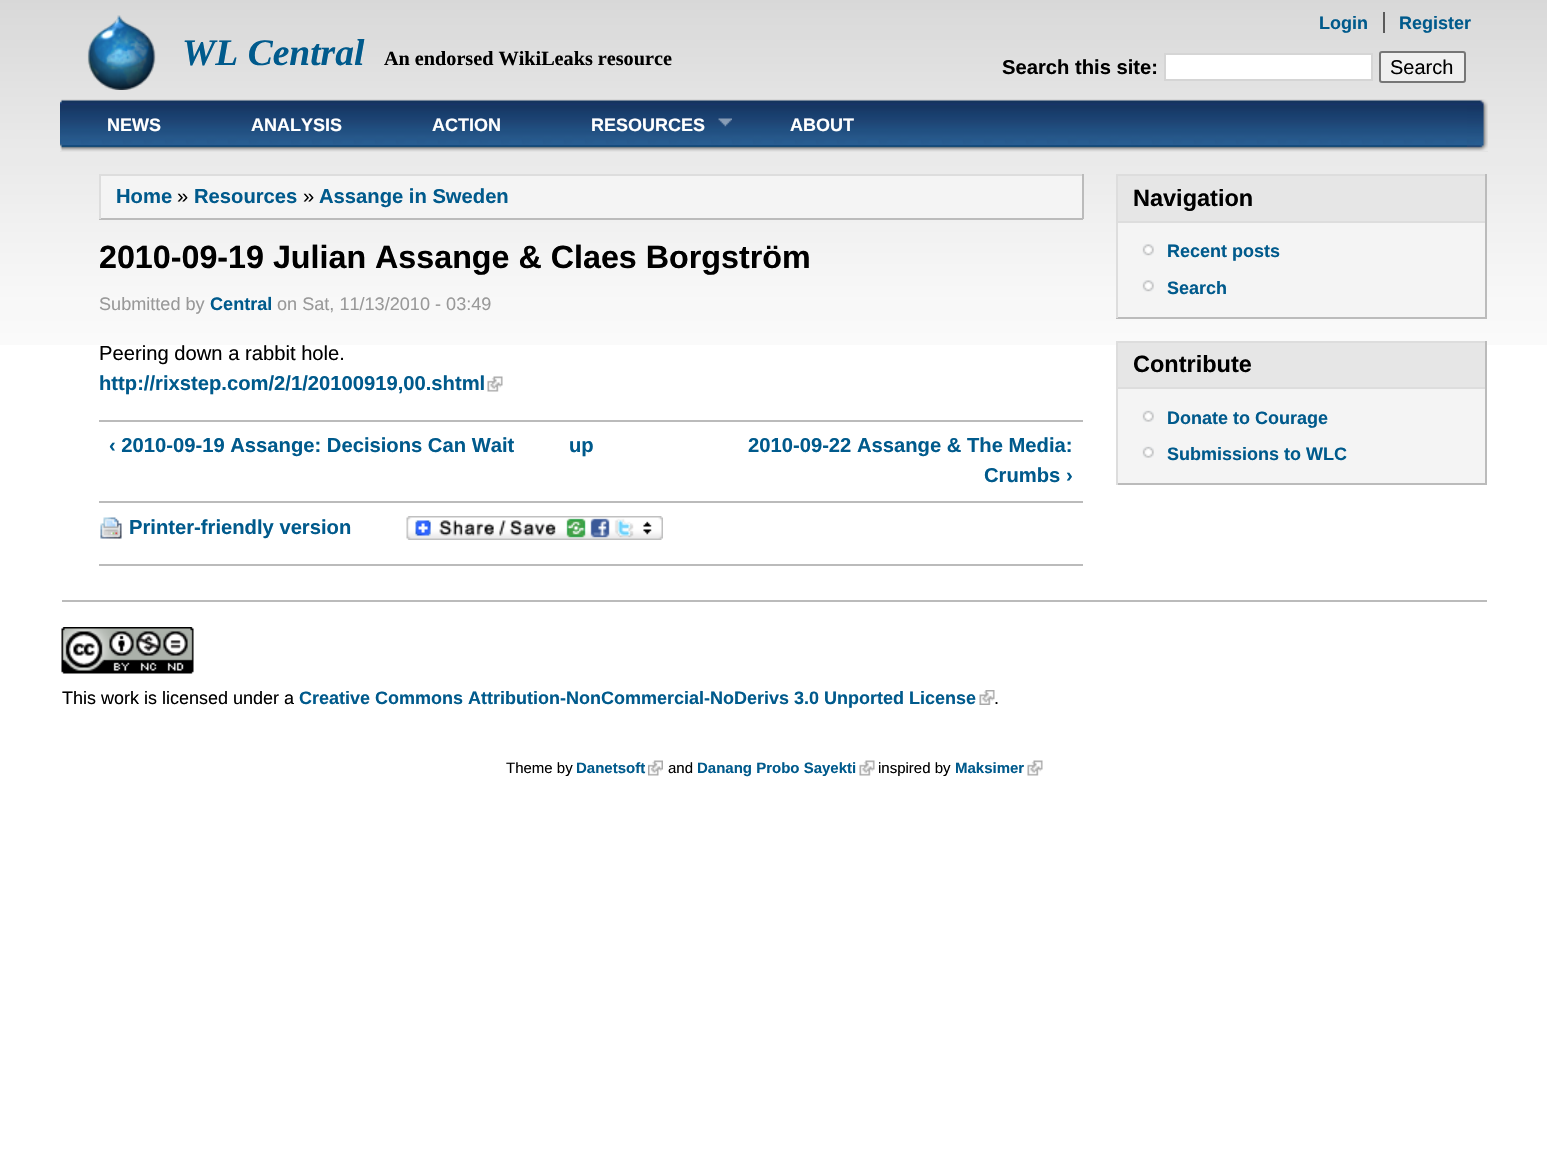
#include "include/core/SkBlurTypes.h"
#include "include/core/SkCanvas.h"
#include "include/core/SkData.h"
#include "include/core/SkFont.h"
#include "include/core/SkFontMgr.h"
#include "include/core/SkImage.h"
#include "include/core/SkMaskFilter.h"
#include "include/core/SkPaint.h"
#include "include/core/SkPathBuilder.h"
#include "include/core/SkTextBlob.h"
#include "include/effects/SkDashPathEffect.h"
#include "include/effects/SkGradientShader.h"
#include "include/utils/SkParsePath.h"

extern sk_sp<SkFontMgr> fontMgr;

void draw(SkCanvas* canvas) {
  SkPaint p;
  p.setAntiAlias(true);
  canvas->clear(SK_ColorWHITE);
  canvas->drawImageRect(SkImages::DeferredFromEncodedData(SkData::MakeFromFileName("images/1.png")), SkRect::MakeLTRB(0, 0, 1547, 345), SkSamplingOptions());
  canvas->drawImageRect(SkImages::DeferredFromEncodedData(SkData::MakeFromFileName("images/2.png")), SkRect::MakeLTRB(87, 15, 156, 90), SkSamplingOptions());
  p.setColor(SkColorSetRGB(90, 90, 90));
  canvas->drawRect(SkRect::MakeLTRB(1383, 12, 1385, 33), p);
  p.setColor(SK_ColorWHITE);
  canvas->drawRect(SkRect::MakeLTRB(1165, 54, 1372, 80), p);
  p.setStyle(SkPaint::kStroke_Style);
  p.setStrokeWidth(2);
  p.setColor(SkColorSetRGB(213, 213, 213));
  canvas->drawRect(SkRect::MakeLTRB(1165, 54, 1372, 80), p);
  p.setStyle(SkPaint::kFill_Style);
  p.setColor(SkColorSetRGB(239, 239, 239));
  canvas->drawRoundRect(SkRect::MakeLTRB(1380, 52, 1465, 82), 2, 2, p);
  p.setStyle(SkPaint::kStroke_Style);
  p.setColor(SkColorSetRGB(118, 118, 118));
  canvas->drawRoundRect(SkRect::MakeLTRB(1380, 52, 1465, 82), 2, 2, p);
  canvas->drawImageRect(SkImages::DeferredFromEncodedData(SkData::MakeFromFileName("images/3.png")), SkRect::MakeLTRB(60, 99, 1488, 152), SkSamplingOptions());
  canvas->drawImageRect(SkImages::DeferredFromEncodedData(SkData::MakeFromFileName("images/4.png")), SkRect::MakeLTRB(60, 99, 62, 151), SkSamplingOptions());
  canvas->drawImageRect(SkImages::DeferredFromEncodedData(SkData::MakeFromFileName("images/5.png")), SkRect::MakeLTRB(718, 118, 732, 127), SkSamplingOptions());
  canvas->drawImageRect(SkImages::DeferredFromEncodedData(SkData::MakeFromFileName("images/6.png")), SkRect::MakeLTRB(1467, 99, 1488, 151), SkSamplingOptions());
  p.setStyle(SkPaint::kFill_Style);
  p.setColor(SkColorSetRGB(244, 244, 244));
  canvas->drawRect(SkRect::MakeLTRB(101, 176, 1082, 218), p);
  p.setColor(SkColorSetRGB(221, 221, 221));
  canvas->drawRect(SkRect::MakeLTRB(99, 174, 1083, 176), p);
  p.setColor(SkColorSetRGB(187, 187, 187));
  canvas->drawRect(SkRect::MakeLTRB(1082, 174, 1084, 219), p);
  canvas->drawRect(SkRect::MakeLTRB(99, 218, 1083, 220), p);
  p.setColor(SkColorSetRGB(221, 221, 221));
  canvas->drawRect(SkRect::MakeLTRB(99, 174, 101, 219), p);
  p.setColor(SkColorSetRGB(187, 187, 187));
  canvas->drawRect(SkRect::MakeLTRB(99, 564, 1083, 566), p);
  canvas->drawImageRect(SkImages::DeferredFromEncodedData(SkData::MakeFromFileName("images/7.png")), SkRect::MakeLTRB(487, 376, 503, 392), SkSamplingOptions());
  canvas->drawRect(SkRect::MakeLTRB(99, 420, 1083, 422), p);
  canvas->drawRect(SkRect::MakeLTRB(99, 501, 1083, 503), p);
  canvas->drawImageRect(SkImages::DeferredFromEncodedData(SkData::MakeFromFileName("images/8.png")), SkRect::MakeLTRB(100, 517, 122, 539), SkSamplingOptions());
  canvas->drawImageRect(SkImages::DeferredFromEncodedData(SkData::MakeFromFileName("images/9.png")), SkRect::MakeLTRB(406, 516, 663, 540), SkSamplingOptions());
  p.setColor(SkColorSetRGB(230, 230, 230));
  canvas->drawRect(SkRect::MakeLTRB(1118, 176, 1485, 221), p);
  p.setColor(SkColorSetRGB(221, 221, 221));
  canvas->drawRect(SkRect::MakeLTRB(1116, 174, 1487, 176), p);
  p.setColor(SkColorSetRGB(187, 187, 187));
  canvas->drawRect(SkRect::MakeLTRB(1485, 174, 1487, 221), p);
  p.setColor(SkColorSetRGB(221, 221, 221));
  canvas->drawRect(SkRect::MakeLTRB(1116, 174, 1118, 221), p);
  p.setColor(SkColorSetRGB(244, 244, 244));
  canvas->drawRect(SkRect::MakeLTRB(1118, 223, 1485, 317), p);
  p.setColor(SkColorSetRGB(221, 221, 221));
  canvas->drawRect(SkRect::MakeLTRB(1116, 221, 1487, 223), p);
  p.setColor(SkColorSetRGB(187, 187, 187));
  canvas->drawRect(SkRect::MakeLTRB(1485, 221, 1487, 318), p);
  canvas->drawRect(SkRect::MakeLTRB(1116, 317, 1487, 319), p);
  p.setColor(SkColorSetRGB(221, 221, 221));
  canvas->drawRect(SkRect::MakeLTRB(1116, 221, 1118, 318), p);
  canvas->drawImageRect(SkImages::DeferredFromEncodedData(SkData::MakeFromFileName("images/10.png")), SkRect::MakeLTRB(1142, 244, 1154, 256), SkSamplingOptions());
  canvas->drawImageRect(SkImages::DeferredFromEncodedData(SkData::MakeFromFileName("images/10.png")), SkRect::MakeLTRB(1142, 280, 1154, 292), SkSamplingOptions());
  p.setColor(SkColorSetRGB(230, 230, 230));
  canvas->drawRect(SkRect::MakeLTRB(1118, 343, 1485, 387), p);
  p.setColor(SkColorSetRGB(221, 221, 221));
  canvas->drawRect(SkRect::MakeLTRB(1116, 341, 1487, 343), p);
  p.setColor(SkColorSetRGB(187, 187, 187));
  canvas->drawRect(SkRect::MakeLTRB(1485, 341, 1487, 387), p);
  p.setColor(SkColorSetRGB(221, 221, 221));
  canvas->drawRect(SkRect::MakeLTRB(1116, 341, 1118, 387), p);
  p.setColor(SkColorSetRGB(244, 244, 244));
  canvas->drawRect(SkRect::MakeLTRB(1118, 389, 1485, 483), p);
  p.setColor(SkColorSetRGB(221, 221, 221));
  canvas->drawRect(SkRect::MakeLTRB(1116, 387, 1487, 389), p);
  p.setColor(SkColorSetRGB(187, 187, 187));
  canvas->drawRect(SkRect::MakeLTRB(1485, 387, 1487, 485), p);
  canvas->drawRect(SkRect::MakeLTRB(1116, 483, 1487, 485), p);
  p.setColor(SkColorSetRGB(221, 221, 221));
  canvas->drawRect(SkRect::MakeLTRB(1116, 387, 1118, 485), p);
  canvas->drawImageRect(SkImages::DeferredFromEncodedData(SkData::MakeFromFileName("images/11.png")), SkRect::MakeLTRB(1142, 410, 1154, 422), SkSamplingOptions());
  canvas->drawImageRect(SkImages::DeferredFromEncodedData(SkData::MakeFromFileName("images/11.png")), SkRect::MakeLTRB(1142, 446, 1154, 458), SkSamplingOptions());
  p.setColor(SkColorSetRGB(187, 187, 187));
  canvas->drawRect(SkRect::MakeLTRB(62, 600, 1487, 602), p);
  canvas->drawImageRect(SkImages::DeferredFromEncodedData(SkData::MakeFromFileName("images/12.png")), SkRect::MakeLTRB(61, 627, 194, 674), SkSamplingOptions());
  canvas->drawImageRect(SkImages::DeferredFromEncodedData(SkData::MakeFromFileName("images/13.png")), SkRect::MakeLTRB(979, 690, 995, 705), SkSamplingOptions());
  canvas->drawImageRect(SkImages::DeferredFromEncodedData(SkData::MakeFromFileName("images/14.png")), SkRect::MakeLTRB(648, 760, 663, 776), SkSamplingOptions());
  canvas->drawImageRect(SkImages::DeferredFromEncodedData(SkData::MakeFromFileName("images/7.png")), SkRect::MakeLTRB(859, 760, 875, 776), SkSamplingOptions());
  canvas->drawImageRect(SkImages::DeferredFromEncodedData(SkData::MakeFromFileName("images/7.png")), SkRect::MakeLTRB(1027, 760, 1043, 776), SkSamplingOptions());
  SkFont font1(fontMgr->matchFamilyStyle("Liberation Sans", SkFontStyle::Bold()), 18);
  font1.setSubpixel(true);
  p.setColor(SkColorSetRGB(0, 90, 140));
  canvas->drawString("Login", 1319, 29, font1, p);
  canvas->drawString("Register", 1399, 29, font1, p);
  SkFont font2(fontMgr->matchFamilyStyle("Liberation Serif", SkFontStyle::BoldItalic()), 37.5f);
  font2.setSubpixel(true);
  canvas->drawString("WL Central", 182, 65, font2, p);
  SkFont font3(fontMgr->matchFamilyStyle("Liberation Serif", SkFontStyle::Bold()), 20.2f);
  font3.setSubpixel(true);
  p.setColor(SK_ColorBLACK);
  canvas->drawString("An endorsed WikiLeaks resource", 384, 65, font3, p);
  SkFont font4(fontMgr->matchFamilyStyle("Liberation Sans", SkFontStyle::Bold()), 20.2f);
  font4.setSubpixel(true);
  canvas->drawString("Search this site:", 1002, 74, font4, p);
  SkFont font5(fontMgr->matchFamilyStyle("Liberation Sans", SkFontStyle::Normal()), 20);
  font5.setSubpixel(true);
  canvas->drawString("Search", 1390, 74, font5, p);
  p.setColor(SK_ColorWHITE);
  canvas->drawString("NEWS", 107, 131, font1, p);
  canvas->drawString("ANALYSIS", 251, 131, font1, p);
  canvas->drawString("ACTION", 432, 131, font1, p);
  canvas->drawString("RESOURCES", 591, 131, font1, p);
  canvas->drawString("ABOUT", 790, 131, font1, p);
  p.setColor(SkColorSetRGB(0, 90, 140));
  canvas->drawString("Home", 116, 203, font4, p);
  SkFont font6(fontMgr->matchFamilyStyle("Liberation Sans", SkFontStyle::Normal()), 20.2f);
  font6.setSubpixel(true);
  p.setColor(SK_ColorBLACK);
  canvas->drawString("»", 177, 203, font6, p);
  p.setColor(SkColorSetRGB(0, 90, 140));
  canvas->drawString("Resources", 194, 203, font4, p);
  p.setColor(SK_ColorBLACK);
  canvas->drawString("»", 303, 203, font6, p);
  p.setColor(SkColorSetRGB(0, 90, 140));
  canvas->drawString("Assange in Sweden", 319, 203, font4, p);
  SkFont font7(fontMgr->matchFamilyStyle("Liberation Sans", SkFontStyle::Bold()), 32.25f);
  font7.setSubpixel(true);
  p.setColor(SK_ColorBLACK);
  canvas->drawString("2010-09-19 Julian Assange & Claes Borgström", 99, 268, font7, p);
  SkFont font8(fontMgr->matchFamilyStyle("Liberation Sans", SkFontStyle::Normal()), 18.1f);
  font8.setSubpixel(true);
  p.setColor(SkColorSetRGB(153, 153, 153));
  canvas->drawString("Submitted by", 99, 310, font8, p);
  SkFont font9(fontMgr->matchFamilyStyle("Liberation Sans", SkFontStyle::Bold()), 18.1f);
  font9.setSubpixel(true);
  p.setColor(SkColorSetRGB(0, 90, 140));
  canvas->drawString("Central", 210, 310, font9, p);
  p.setColor(SkColorSetRGB(153, 153, 153));
  canvas->drawString("on Sat, 11/13/2010 - 03:49", 277, 310, font8, p);
  p.setColor(SK_ColorBLACK);
  canvas->drawString("Peering down a rabbit hole.", 99, 360, font6, p);
  p.setColor(SkColorSetRGB(0, 90, 140));
  canvas->drawString("http://rixstep.com/2/1/20100919,00.shtml", 99, 390, font4, p);
  canvas->drawString("‹ 2010-09-19 Assange: Decisions Can Wait", 109, 452, font4, p);
  canvas->drawString("up", 569, 452, font4, p);
  canvas->drawString("2010-09-22 Assange & The Media:", 748, 452, font4, p);
  canvas->drawString("Crumbs ›", 984, 482, font4, p);
  canvas->drawString("Printer-friendly version", 129, 534, font4, p);
  SkFont font10(fontMgr->matchFamilyStyle("Liberation Sans", SkFontStyle::Bold()), 23.5f);
  font10.setSubpixel(true);
  p.setColor(SK_ColorBLACK);
  canvas->drawString("Navigation", 1133, 206, font10, p);
  p.setColor(SkColorSetRGB(0, 90, 140));
  canvas->drawString("Recent posts", 1167, 257, font1, p);
  canvas->drawString("Search", 1167, 294, font1, p);
  p.setColor(SK_ColorBLACK);
  canvas->drawString("Contribute", 1133, 372, font10, p);
  p.setColor(SkColorSetRGB(0, 90, 140));
  canvas->drawString("Donate to Courage", 1167, 424, font1, p);
  canvas->drawString("Submissions to WLC", 1167, 460, font1, p);
  SkFont font11(fontMgr->matchFamilyStyle("Liberation Sans", SkFontStyle::Normal()), 18);
  font11.setSubpixel(true);
  p.setColor(SK_ColorBLACK);
  canvas->drawString("This work is licensed under a", 62, 704, font11, p);
  p.setColor(SkColorSetRGB(0, 90, 140));
  canvas->drawString("Creative Commons Attribution-NonCommercial-NoDerivs 3.0 Unported License", 299, 704, font1, p);
  p.setColor(SK_ColorBLACK);
  canvas->drawString(".", 994, 704, font11, p);
  SkFont font12(fontMgr->matchFamilyStyle("Liberation Sans", SkFontStyle::Normal()), 15);
  font12.setSubpixel(true);
  canvas->drawString("Theme by", 506, 773, font12, p);
  SkFont font13(fontMgr->matchFamilyStyle("Liberation Sans", SkFontStyle::Bold()), 15);
  font13.setSubpixel(true);
  p.setColor(SkColorSetRGB(0, 90, 140));
  canvas->drawString("Danetsoft", 576, 773, font13, p);
  p.setColor(SK_ColorBLACK);
  canvas->drawString("and", 668, 773, font12, p);
  p.setColor(SkColorSetRGB(0, 90, 140));
  canvas->drawString("Danang Probo Sayekti", 697, 773, font13, p);
  p.setColor(SK_ColorBLACK);
  canvas->drawString("inspired by", 878, 773, font12, p);
  p.setColor(SkColorSetRGB(0, 90, 140));
  canvas->drawString("Maksimer", 955, 773, font13, p);
}
